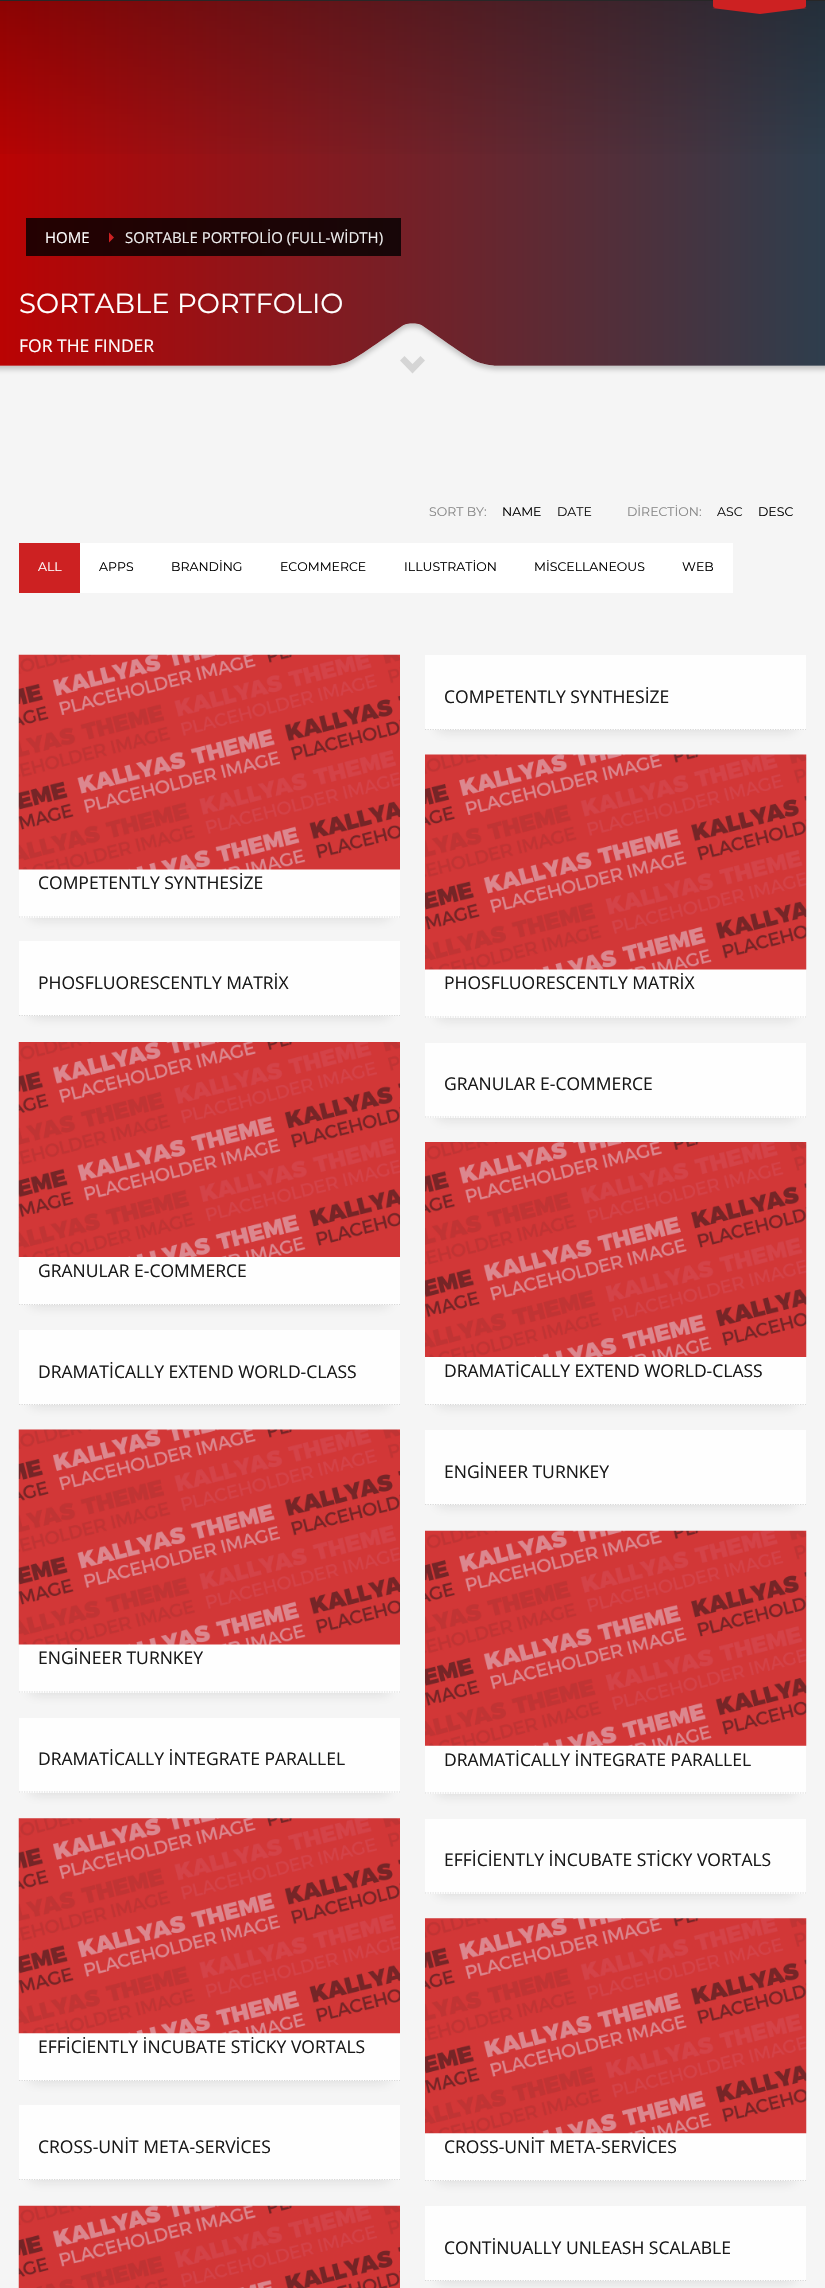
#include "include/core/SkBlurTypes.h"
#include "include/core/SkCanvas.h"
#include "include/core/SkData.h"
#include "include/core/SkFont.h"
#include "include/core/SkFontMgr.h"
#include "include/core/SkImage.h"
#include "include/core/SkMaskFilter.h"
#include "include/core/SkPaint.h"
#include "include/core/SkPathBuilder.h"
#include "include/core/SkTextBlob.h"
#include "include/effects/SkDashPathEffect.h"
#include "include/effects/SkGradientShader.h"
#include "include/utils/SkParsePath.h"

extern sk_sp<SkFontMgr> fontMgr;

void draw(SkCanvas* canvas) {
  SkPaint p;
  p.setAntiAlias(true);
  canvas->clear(SkColorSetRGB(245, 245, 245));
  p.setColor(SkColorSetRGB(51, 51, 51));
  canvas->drawRect(SkRect::MakeLTRB(0, 0, 825, 1), p);
  {
    const SkColor colors[] = {SkColorSetRGB(186, 3, 3), SkColorSetRGB(46, 62, 77)};
    const float stops[] = {0, 1};
    const SkPoint ends[] = {{0, 189}, {825, 189}};
    p.setShader(SkGradientShader::MakeLinear(ends, colors, stops, 2, SkTileMode::kClamp));
    p.setAlpha(255);
  }
  canvas->drawRect(SkRect::MakeLTRB(0, 1, 825, 366), p);
  {
    const SkColor colors[] = {SkColorSetARGB(153, 0, 0, 0), SkColorSetARGB(0, 0, 0, 0)};
    const float stops[] = {0, 1};
    const SkPoint ends[] = {{413, -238}, {413, 169}};
    p.setShader(SkGradientShader::MakeLinear(ends, colors, stops, 2, SkTileMode::kClamp));
    p.setAlpha(255);
  }
  canvas->drawRect(SkRect::MakeLTRB(0, 0, 825, 154), p);
  p.setShader(nullptr);
  p.setColor(SkColorSetRGB(205, 33, 34));
  canvas->drawRoundRect(SkRect::MakeLTRB(713, -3, 806, 8), 2.5f, 2.5f, p);
  canvas->drawPath(SkPathBuilder(SkPathFillType::kEvenOdd).moveTo(807, 8).lineTo(760, 14).lineTo(712, 8).close().detach(), p);
  {
    const SkColor colors[] = {SkColorSetRGB(37, 1, 1), SkColorSetRGB(9, 12, 15)};
    const float stops[] = {0, 1};
    const SkPoint ends[] = {{0, 189}, {825, 189}};
    p.setShader(SkGradientShader::MakeLinear(ends, colors, stops, 2, SkTileMode::kClamp));
    p.setAlpha(255);
  }
  canvas->drawRect(SkRect::MakeLTRB(96, 218, 401, 256), p);
  canvas->drawRect(SkRect::MakeLTRB(26, 218, 96, 256), p);
  p.setShader(nullptr);
  p.setColor(SkColorSetRGB(205, 33, 34));
  canvas->drawPath(SkPathBuilder().moveTo(109, 242.5f).lineTo(109, 232.5f).lineTo(114, 237.5f).close().detach(), p);
  canvas->drawRect(SkRect::MakeLTRB(19, 543, 80, 593), p);
  p.setColor(SK_ColorWHITE);
  canvas->drawRect(SkRect::MakeLTRB(80, 543, 733, 593), p);
  p.setColor(SkColorSetARGB(38, 25, 25, 25));
  p.setMaskFilter(SkMaskFilter::MakeBlur(kNormal_SkBlurStyle, 6));
  canvas->drawRect(SkRect::MakeLTRB(438, 680, 794, 730), p);
  p.setMaskFilter(nullptr);
  p.setColor(SkColorSetRGB(254, 254, 254));
  canvas->drawRect(SkRect::MakeLTRB(425, 655, 806, 730), p);
  p.setStyle(SkPaint::kStroke_Style);
  p.setStrokeWidth(1.2f);
  p.setColor(SkColorSetRGB(215, 215, 215));
  p.setPathEffect(SkDashPathEffect::Make({{1.25f, 1.25f}}, 0));
  canvas->drawPath(SkPathBuilder().moveTo(425, 729.5f).lineTo(806, 729.5f).detach(), p);
  p.setPathEffect(nullptr);
  p.setStyle(SkPaint::kFill_Style);
  p.setColor(SkColorSetARGB(38, 25, 25, 25));
  p.setMaskFilter(SkMaskFilter::MakeBlur(kNormal_SkBlurStyle, 6));
  canvas->drawRect(SkRect::MakeLTRB(31, 680, 388, 918), p);
  p.setMaskFilter(nullptr);
  p.setColor(SkColorSetRGB(254, 254, 254));
  canvas->drawRect(SkRect::MakeLTRB(19, 655, 400, 918), p);
  canvas->drawImageRect(SkImages::DeferredFromEncodedData(SkData::MakeFromFileName("images/2.png")), SkRect::MakeLTRB(18, 654, 400, 870), SkSamplingOptions());
  p.setStyle(SkPaint::kStroke_Style);
  p.setColor(SkColorSetRGB(215, 215, 215));
  p.setPathEffect(SkDashPathEffect::Make({{1.25f, 1.25f}}, 0));
  canvas->drawPath(SkPathBuilder().moveTo(19, 917).lineTo(400, 917).detach(), p);
  p.setPathEffect(nullptr);
  p.setStyle(SkPaint::kFill_Style);
  p.setColor(SkColorSetARGB(38, 25, 25, 25));
  p.setMaskFilter(SkMaskFilter::MakeBlur(kNormal_SkBlurStyle, 6));
  canvas->drawRect(SkRect::MakeLTRB(31, 966, 388, 1016), p);
  p.setMaskFilter(nullptr);
  p.setColor(SkColorSetRGB(254, 254, 254));
  canvas->drawRect(SkRect::MakeLTRB(19, 941, 400, 1016), p);
  p.setStyle(SkPaint::kStroke_Style);
  p.setColor(SkColorSetRGB(215, 215, 215));
  p.setPathEffect(SkDashPathEffect::Make({{1.25f, 1.25f}}, 0));
  canvas->drawPath(SkPathBuilder().moveTo(19, 1015.5f).lineTo(400, 1015.5f).detach(), p);
  p.setPathEffect(nullptr);
  p.setStyle(SkPaint::kFill_Style);
  p.setColor(SkColorSetARGB(38, 25, 25, 25));
  p.setMaskFilter(SkMaskFilter::MakeBlur(kNormal_SkBlurStyle, 6));
  canvas->drawRect(SkRect::MakeLTRB(438, 780, 794, 1018), p);
  p.setMaskFilter(nullptr);
  p.setColor(SkColorSetRGB(254, 254, 254));
  canvas->drawRect(SkRect::MakeLTRB(425, 755, 806, 1018), p);
  canvas->drawImageRect(SkImages::DeferredFromEncodedData(SkData::MakeFromFileName("images/3.png")), SkRect::MakeLTRB(425, 754, 807, 970), SkSamplingOptions());
  p.setStyle(SkPaint::kStroke_Style);
  p.setColor(SkColorSetRGB(215, 215, 215));
  p.setPathEffect(SkDashPathEffect::Make({{1.25f, 1.25f}}, 0));
  canvas->drawPath(SkPathBuilder().moveTo(425, 1017).lineTo(806, 1017).detach(), p);
  p.setPathEffect(nullptr);
  p.setStyle(SkPaint::kFill_Style);
  p.setColor(SkColorSetARGB(38, 25, 25, 25));
  p.setMaskFilter(SkMaskFilter::MakeBlur(kNormal_SkBlurStyle, 6));
  canvas->drawRect(SkRect::MakeLTRB(438, 1068, 794, 1118), p);
  p.setMaskFilter(nullptr);
  p.setColor(SkColorSetRGB(254, 254, 254));
  canvas->drawRect(SkRect::MakeLTRB(425, 1043, 806, 1118), p);
  p.setStyle(SkPaint::kStroke_Style);
  p.setColor(SkColorSetRGB(215, 215, 215));
  p.setPathEffect(SkDashPathEffect::Make({{1.25f, 1.25f}}, 0));
  canvas->drawPath(SkPathBuilder().moveTo(425, 1117).lineTo(806, 1117).detach(), p);
  p.setPathEffect(nullptr);
  p.setStyle(SkPaint::kFill_Style);
  p.setColor(SkColorSetARGB(38, 25, 25, 25));
  p.setMaskFilter(SkMaskFilter::MakeBlur(kNormal_SkBlurStyle, 6));
  canvas->drawRect(SkRect::MakeLTRB(31, 1068, 388, 1305), p);
  p.setMaskFilter(nullptr);
  p.setColor(SkColorSetRGB(254, 254, 254));
  canvas->drawRect(SkRect::MakeLTRB(19, 1043, 400, 1305), p);
  canvas->drawImageRect(SkImages::DeferredFromEncodedData(SkData::MakeFromFileName("images/4.png")), SkRect::MakeLTRB(18, 1042, 400, 1257), SkSamplingOptions());
  p.setStyle(SkPaint::kStroke_Style);
  p.setColor(SkColorSetRGB(215, 215, 215));
  p.setPathEffect(SkDashPathEffect::Make({{1.25f, 1.25f}}, 0));
  canvas->drawPath(SkPathBuilder().moveTo(19, 1304.5f).lineTo(400, 1304.5f).detach(), p);
  p.setPathEffect(nullptr);
  p.setStyle(SkPaint::kFill_Style);
  p.setColor(SkColorSetARGB(38, 25, 25, 25));
  p.setMaskFilter(SkMaskFilter::MakeBlur(kNormal_SkBlurStyle, 6));
  canvas->drawRect(SkRect::MakeLTRB(31, 1355, 388, 1405), p);
  p.setMaskFilter(nullptr);
  p.setColor(SkColorSetRGB(254, 254, 254));
  canvas->drawRect(SkRect::MakeLTRB(19, 1330, 400, 1405), p);
  p.setStyle(SkPaint::kStroke_Style);
  p.setColor(SkColorSetRGB(215, 215, 215));
  p.setPathEffect(SkDashPathEffect::Make({{1.25f, 1.25f}}, 0));
  canvas->drawPath(SkPathBuilder().moveTo(19, 1404.5f).lineTo(400, 1404.5f).detach(), p);
  p.setPathEffect(nullptr);
  p.setStyle(SkPaint::kFill_Style);
  p.setColor(SkColorSetARGB(38, 25, 25, 25));
  p.setMaskFilter(SkMaskFilter::MakeBlur(kNormal_SkBlurStyle, 6));
  canvas->drawRect(SkRect::MakeLTRB(438, 1168, 794, 1405), p);
  p.setMaskFilter(nullptr);
  p.setColor(SkColorSetRGB(254, 254, 254));
  canvas->drawRect(SkRect::MakeLTRB(425, 1143, 806, 1405), p);
  canvas->drawImageRect(SkImages::DeferredFromEncodedData(SkData::MakeFromFileName("images/5.png")), SkRect::MakeLTRB(425, 1142, 807, 1357), SkSamplingOptions());
  p.setStyle(SkPaint::kStroke_Style);
  p.setColor(SkColorSetRGB(215, 215, 215));
  p.setPathEffect(SkDashPathEffect::Make({{1.25f, 1.25f}}, 0));
  canvas->drawPath(SkPathBuilder().moveTo(425, 1404.5f).lineTo(806, 1404.5f).detach(), p);
  p.setPathEffect(nullptr);
  p.setStyle(SkPaint::kFill_Style);
  p.setColor(SkColorSetARGB(38, 25, 25, 25));
  p.setMaskFilter(SkMaskFilter::MakeBlur(kNormal_SkBlurStyle, 6));
  canvas->drawRect(SkRect::MakeLTRB(438, 1455, 794, 1505), p);
  p.setMaskFilter(nullptr);
  p.setColor(SkColorSetRGB(254, 254, 254));
  canvas->drawRect(SkRect::MakeLTRB(425, 1430, 806, 1505), p);
  p.setStyle(SkPaint::kStroke_Style);
  p.setColor(SkColorSetRGB(215, 215, 215));
  p.setPathEffect(SkDashPathEffect::Make({{1.25f, 1.25f}}, 0));
  canvas->drawPath(SkPathBuilder().moveTo(425, 1504.5f).lineTo(806, 1504.5f).detach(), p);
  p.setPathEffect(nullptr);
  p.setStyle(SkPaint::kFill_Style);
  p.setColor(SkColorSetARGB(38, 25, 25, 25));
  p.setMaskFilter(SkMaskFilter::MakeBlur(kNormal_SkBlurStyle, 6));
  canvas->drawRect(SkRect::MakeLTRB(31, 1455, 388, 1693), p);
  p.setMaskFilter(nullptr);
  p.setColor(SkColorSetRGB(254, 254, 254));
  canvas->drawRect(SkRect::MakeLTRB(19, 1430, 400, 1693), p);
  canvas->drawImageRect(SkImages::DeferredFromEncodedData(SkData::MakeFromFileName("images/6.png")), SkRect::MakeLTRB(18, 1429, 400, 1645), SkSamplingOptions());
  p.setStyle(SkPaint::kStroke_Style);
  p.setColor(SkColorSetRGB(215, 215, 215));
  p.setPathEffect(SkDashPathEffect::Make({{1.25f, 1.25f}}, 0));
  canvas->drawPath(SkPathBuilder().moveTo(19, 1692).lineTo(400, 1692).detach(), p);
  p.setPathEffect(nullptr);
  p.setStyle(SkPaint::kFill_Style);
  p.setColor(SkColorSetARGB(38, 25, 25, 25));
  p.setMaskFilter(SkMaskFilter::MakeBlur(kNormal_SkBlurStyle, 6));
  canvas->drawRect(SkRect::MakeLTRB(31, 1743, 388, 1793), p);
  p.setMaskFilter(nullptr);
  p.setColor(SkColorSetRGB(254, 254, 254));
  canvas->drawRect(SkRect::MakeLTRB(19, 1718, 400, 1793), p);
  p.setStyle(SkPaint::kStroke_Style);
  p.setColor(SkColorSetRGB(215, 215, 215));
  p.setPathEffect(SkDashPathEffect::Make({{1.25f, 1.25f}}, 0));
  canvas->drawPath(SkPathBuilder().moveTo(19, 1792).lineTo(400, 1792).detach(), p);
  p.setPathEffect(nullptr);
  p.setStyle(SkPaint::kFill_Style);
  p.setColor(SkColorSetARGB(38, 25, 25, 25));
  p.setMaskFilter(SkMaskFilter::MakeBlur(kNormal_SkBlurStyle, 6));
  canvas->drawRect(SkRect::MakeLTRB(438, 1556, 794, 1794), p);
  p.setMaskFilter(nullptr);
  p.setColor(SkColorSetRGB(254, 254, 254));
  canvas->drawRect(SkRect::MakeLTRB(425, 1531, 806, 1794), p);
  canvas->drawImageRect(SkImages::DeferredFromEncodedData(SkData::MakeFromFileName("images/7.png")), SkRect::MakeLTRB(425, 1530, 807, 1746), SkSamplingOptions());
  p.setStyle(SkPaint::kStroke_Style);
  p.setColor(SkColorSetRGB(215, 215, 215));
  p.setPathEffect(SkDashPathEffect::Make({{1.25f, 1.25f}}, 0));
  canvas->drawPath(SkPathBuilder().moveTo(425, 1793).lineTo(806, 1793).detach(), p);
  p.setPathEffect(nullptr);
  p.setStyle(SkPaint::kFill_Style);
  p.setColor(SkColorSetARGB(38, 25, 25, 25));
  p.setMaskFilter(SkMaskFilter::MakeBlur(kNormal_SkBlurStyle, 6));
  canvas->drawRect(SkRect::MakeLTRB(438, 1844, 794, 1894), p);
  p.setMaskFilter(nullptr);
  p.setColor(SkColorSetRGB(254, 254, 254));
  canvas->drawRect(SkRect::MakeLTRB(425, 1819, 806, 1894), p);
  p.setStyle(SkPaint::kStroke_Style);
  p.setColor(SkColorSetRGB(215, 215, 215));
  p.setPathEffect(SkDashPathEffect::Make({{1.25f, 1.25f}}, 0));
  canvas->drawPath(SkPathBuilder().moveTo(425, 1893).lineTo(806, 1893).detach(), p);
  p.setPathEffect(nullptr);
  p.setStyle(SkPaint::kFill_Style);
  p.setColor(SkColorSetARGB(38, 25, 25, 25));
  p.setMaskFilter(SkMaskFilter::MakeBlur(kNormal_SkBlurStyle, 6));
  canvas->drawRect(SkRect::MakeLTRB(31, 1844, 388, 2081), p);
  p.setMaskFilter(nullptr);
  p.setColor(SkColorSetRGB(254, 254, 254));
  canvas->drawRect(SkRect::MakeLTRB(19, 1819, 400, 2081), p);
  canvas->drawImageRect(SkImages::DeferredFromEncodedData(SkData::MakeFromFileName("images/8.png")), SkRect::MakeLTRB(18, 1818, 400, 2034), SkSamplingOptions());
  p.setStyle(SkPaint::kStroke_Style);
  p.setColor(SkColorSetRGB(215, 215, 215));
  p.setPathEffect(SkDashPathEffect::Make({{1.25f, 1.25f}}, 0));
  canvas->drawPath(SkPathBuilder().moveTo(19, 2080.5f).lineTo(400, 2080.5f).detach(), p);
  p.setPathEffect(nullptr);
  p.setStyle(SkPaint::kFill_Style);
  p.setColor(SkColorSetARGB(38, 25, 25, 25));
  p.setMaskFilter(SkMaskFilter::MakeBlur(kNormal_SkBlurStyle, 6));
  canvas->drawRect(SkRect::MakeLTRB(31, 2130, 388, 2180), p);
  p.setMaskFilter(nullptr);
  p.setColor(SkColorSetRGB(254, 254, 254));
  canvas->drawRect(SkRect::MakeLTRB(19, 2105, 400, 2180), p);
  p.setStyle(SkPaint::kStroke_Style);
  p.setColor(SkColorSetRGB(215, 215, 215));
  p.setPathEffect(SkDashPathEffect::Make({{1.25f, 1.25f}}, 0));
  canvas->drawPath(SkPathBuilder().moveTo(19, 2179.5f).lineTo(400, 2179.5f).detach(), p);
  p.setPathEffect(nullptr);
  p.setStyle(SkPaint::kFill_Style);
  p.setColor(SkColorSetARGB(38, 25, 25, 25));
  p.setMaskFilter(SkMaskFilter::MakeBlur(kNormal_SkBlurStyle, 6));
  canvas->drawRect(SkRect::MakeLTRB(438, 1944, 794, 2181), p);
  p.setMaskFilter(nullptr);
  p.setColor(SkColorSetRGB(254, 254, 254));
  canvas->drawRect(SkRect::MakeLTRB(425, 1919, 806, 2181), p);
  canvas->drawImageRect(SkImages::DeferredFromEncodedData(SkData::MakeFromFileName("images/9.png")), SkRect::MakeLTRB(425, 1918, 807, 2134), SkSamplingOptions());
  p.setStyle(SkPaint::kStroke_Style);
  p.setColor(SkColorSetRGB(215, 215, 215));
  p.setPathEffect(SkDashPathEffect::Make({{1.25f, 1.25f}}, 0));
  canvas->drawPath(SkPathBuilder().moveTo(425, 2180.5f).lineTo(806, 2180.5f).detach(), p);
  p.setPathEffect(nullptr);
  canvas->drawImageRect(SkImages::DeferredFromEncodedData(SkData::MakeFromFileName("images/10.png")), SkRect::MakeLTRB(18, 2205, 400, 2288), SkSamplingOptions());
  p.setStyle(SkPaint::kFill_Style);
  p.setColor(SkColorSetARGB(38, 25, 25, 25));
  p.setMaskFilter(SkMaskFilter::MakeBlur(kNormal_SkBlurStyle, 6));
  canvas->drawRect(SkRect::MakeLTRB(438, 2231, 794, 2281), p);
  p.setMaskFilter(nullptr);
  p.setColor(SkColorSetRGB(254, 254, 254));
  canvas->drawRect(SkRect::MakeLTRB(425, 2206, 806, 2281), p);
  p.setStyle(SkPaint::kStroke_Style);
  p.setColor(SkColorSetRGB(215, 215, 215));
  p.setPathEffect(SkDashPathEffect::Make({{1.25f, 1.25f}}, 0));
  canvas->drawPath(SkPathBuilder().moveTo(425, 2280.5f).lineTo(806, 2280.5f).detach(), p);
  p.setPathEffect(nullptr);
  SkFont font1(fontMgr->matchFamilyStyle("Open Sans", SkFontStyle::Normal()), 15);
  font1.setSubpixel(true);
  p.setStyle(SkPaint::kFill_Style);
  p.setColor(SK_ColorWHITE);
  canvas->drawString("HOME", 45, 243, font1, p);
  p.setColor(SkColorSetRGB(238, 238, 238));
  canvas->drawString("SORTABLE PORTFOLİO (FULL-WİDTH)", 125, 243, font1, p);
  SkFont font2(fontMgr->matchFamilyStyle("Montserrat", SkFontStyle::Normal()), 27.5f);
  font2.setSubpixel(true);
  p.setColor(SK_ColorWHITE);
  canvas->drawString("SORTABLE PORTFOLIO", 19, 313, font2, p);
  SkFont font3(fontMgr->matchFamilyStyle("Open Sans", SkFontStyle::Normal()), 17.5f);
  font3.setSubpixel(true);
  canvas->drawString("FOR THE FINDER", 19, 352, font3, p);
  canvas->drawImageRect(SkImages::DeferredFromEncodedData(SkData::MakeFromFileName("images/1.png")), SkRect::MakeLTRB(0, 323, 825, 376), SkSamplingOptions());
  p.setColor(SkColorSetRGB(213, 213, 213));
  canvas->drawPath(SkPathBuilder().moveTo(425, 360.5f).lineTo(412.5f, 373.5f).lineTo(400, 360.5f).lineTo(404.5f, 356).lineTo(412.5f, 364).lineTo(420.5f, 356).close().detach(), p);
  SkFont font4(fontMgr->matchFamilyStyle("Montserrat", SkFontStyle::Normal()), 12.5f);
  font4.setSubpixel(true);
  p.setColor(SkColorSetRGB(136, 136, 136));
  canvas->drawString("SORT BY:", 429, 516, font4, p);
  p.setColor(SK_ColorBLACK);
  canvas->drawString("NAME", 502, 516, font4, p);
  p.setColor(SkColorSetRGB(19, 19, 19));
  canvas->drawString("DATE", 557, 516, font4, p);
  p.setColor(SkColorSetRGB(136, 136, 136));
  canvas->drawString("DİRECTİON:", 627, 516, font4, p);
  p.setColor(SkColorSetRGB(19, 19, 19));
  canvas->drawString("ASC", 717, 516, font4, p);
  p.setColor(SK_ColorBLACK);
  canvas->drawString("DESC", 758, 516, font4, p);
  p.setColor(SK_ColorWHITE);
  canvas->drawString("ALL", 38, 571, font4, p);
  p.setColor(SK_ColorBLACK);
  canvas->drawString("APPS", 99, 571, font4, p);
  canvas->drawString("BRANDİNG", 171, 571, font4, p);
  canvas->drawString("ECOMMERCE", 280, 571, font4, p);
  canvas->drawString("ILLUSTRATİON", 404, 571, font4, p);
  canvas->drawString("MİSCELLANEOUS", 534, 571, font4, p);
  canvas->drawString("WEB", 682, 571, font4, p);
  p.setColor(SkColorSetRGB(25, 25, 25));
  canvas->drawString("COMPETENTLY SYNTHESİZE", 444, 703, font3, p);
  canvas->drawString("COMPETENTLY SYNTHESİZE", 38, 889, font3, p);
  canvas->drawString("PHOSFLUORESCENTLY MATRİX", 38, 989, font3, p);
  canvas->drawString("PHOSFLUORESCENTLY MATRİX", 444, 989, font3, p);
  canvas->drawString("GRANULAR E-COMMERCE", 444, 1090, font3, p);
  canvas->drawString("GRANULAR E-COMMERCE", 38, 1277, font3, p);
  canvas->drawString("DRAMATİCALLY EXTEND WORLD-CLASS", 38, 1378, font3, p);
  canvas->drawString("DRAMATİCALLY EXTEND WORLD-CLASS", 444, 1377, font3, p);
  canvas->drawString("ENGİNEER TURNKEY", 444, 1478, font3, p);
  canvas->drawString("ENGİNEER TURNKEY", 38, 1664, font3, p);
  canvas->drawString("DRAMATİCALLY İNTEGRATE PARALLEL", 38, 1765, font3, p);
  canvas->drawString("DRAMATİCALLY İNTEGRATE PARALLEL", 444, 1766, font3, p);
  canvas->drawString("EFFİCİENTLY İNCUBATE STİCKY VORTALS", 444, 1866, font3, p);
  canvas->drawString("EFFİCİENTLY İNCUBATE STİCKY VORTALS", 38, 2053, font3, p);
  canvas->drawString("CROSS-UNİT META-SERVİCES", 38, 2153, font3, p);
  canvas->drawString("CROSS-UNİT META-SERVİCES", 444, 2153, font3, p);
  canvas->drawString("CONTİNUALLY UNLEASH SCALABLE", 444, 2254, font3, p);
}
